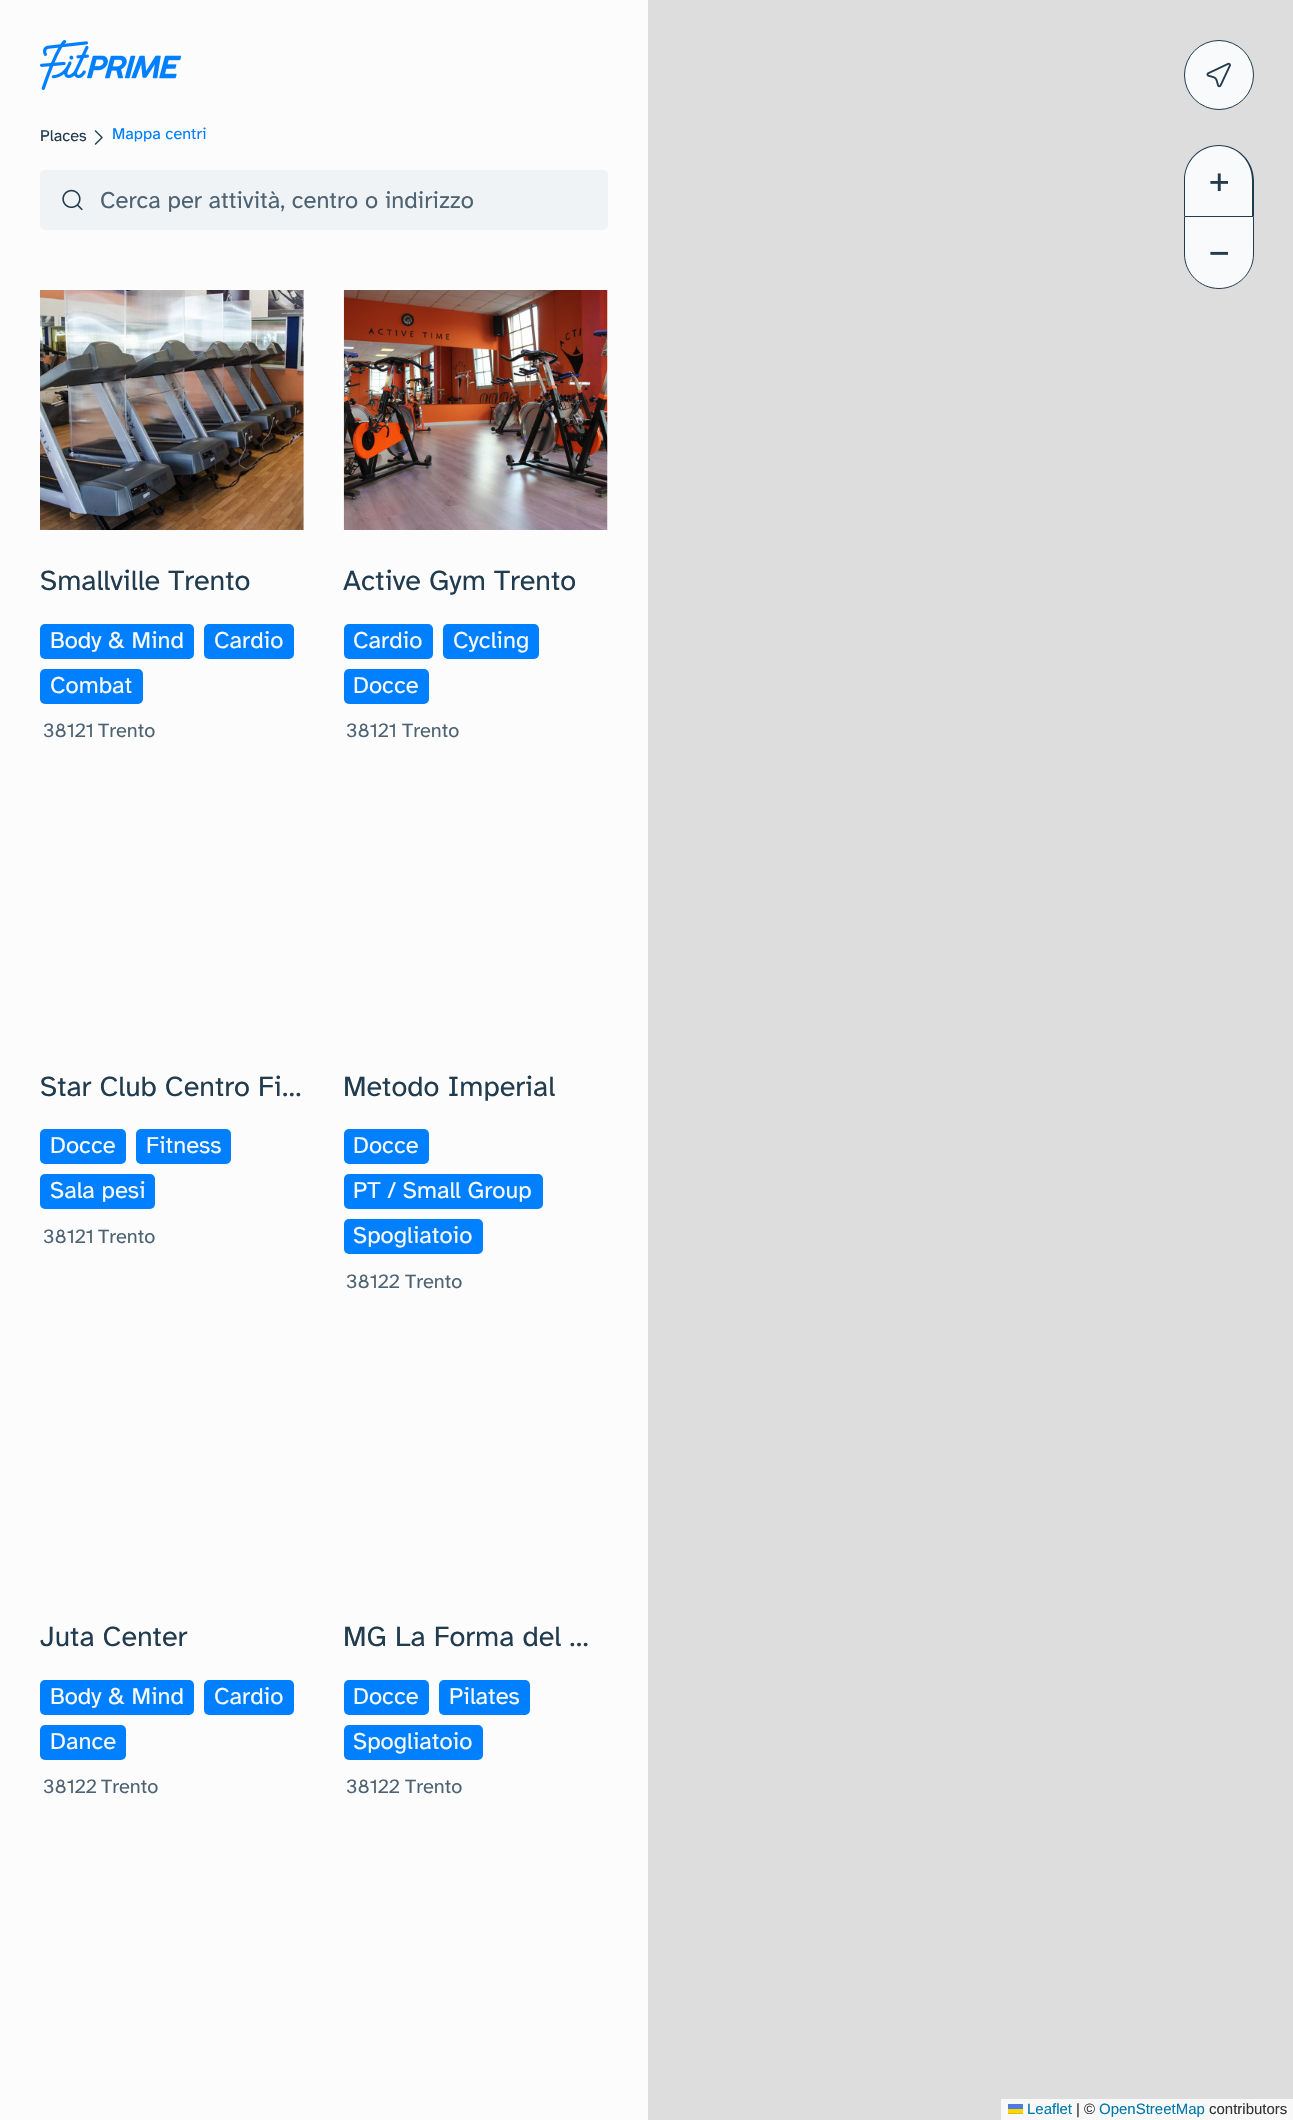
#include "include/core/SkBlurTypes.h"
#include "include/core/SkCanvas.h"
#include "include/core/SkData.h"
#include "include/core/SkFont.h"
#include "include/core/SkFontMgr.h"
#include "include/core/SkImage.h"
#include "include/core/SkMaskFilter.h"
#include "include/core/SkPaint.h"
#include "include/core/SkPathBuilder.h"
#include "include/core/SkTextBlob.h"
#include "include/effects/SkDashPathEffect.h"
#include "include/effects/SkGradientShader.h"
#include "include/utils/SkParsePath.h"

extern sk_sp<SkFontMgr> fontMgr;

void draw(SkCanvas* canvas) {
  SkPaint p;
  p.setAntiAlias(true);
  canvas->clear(SkColorSetRGB(252, 252, 252));
  canvas->drawImageRect(SkImages::DeferredFromEncodedData(SkData::MakeFromFileName("images/1.png")), SkRect::MakeLTRB(40, 40, 181, 90), SkSamplingOptions());
  canvas->drawImageRect(SkImages::DeferredFromEncodedData(SkData::MakeFromFileName("images/2.png")), SkRect::MakeLTRB(94, 130, 103, 145), SkSamplingOptions());
  p.setColor(SkColorSetRGB(239, 243, 245));
  canvas->drawRoundRect(SkRect::MakeLTRB(40, 170, 608, 230), 5, 5, p);
  canvas->drawImageRect(SkImages::DeferredFromEncodedData(SkData::MakeFromFileName("images/3.png")), SkRect::MakeLTRB(62, 189, 83, 211), SkSamplingOptions());
  canvas->drawImageRect(SkImages::DeferredFromEncodedData(SkData::MakeFromFileName("images/4.png")), SkRect::MakeLTRB(40, 290, 304, 530), SkSamplingOptions());
  p.setColor(SkColorSetRGB(0, 128, 254));
  canvas->drawRoundRect(SkRect::MakeLTRB(40, 624, 194, 659), 5, 5, p);
  canvas->drawRoundRect(SkRect::MakeLTRB(204, 624, 294, 659), 5, 5, p);
  canvas->drawRoundRect(SkRect::MakeLTRB(40, 669, 143, 704), 5, 5, p);
  canvas->drawImageRect(SkImages::DeferredFromEncodedData(SkData::MakeFromFileName("images/5.png")), SkRect::MakeLTRB(343, 290, 608, 530), SkSamplingOptions());
  canvas->drawRoundRect(SkRect::MakeLTRB(344, 624, 433, 659), 5, 5, p);
  canvas->drawRoundRect(SkRect::MakeLTRB(443, 624, 539, 659), 5, 5, p);
  canvas->drawRoundRect(SkRect::MakeLTRB(344, 669, 429, 704), 5, 5, p);
  canvas->drawRoundRect(SkRect::MakeLTRB(40, 1129, 126, 1164), 5, 5, p);
  canvas->drawRoundRect(SkRect::MakeLTRB(136, 1129, 231, 1164), 5, 5, p);
  canvas->drawRoundRect(SkRect::MakeLTRB(40, 1174, 155, 1209), 5, 5, p);
  canvas->drawRoundRect(SkRect::MakeLTRB(344, 1129, 429, 1164), 5, 5, p);
  canvas->drawRoundRect(SkRect::MakeLTRB(344, 1174, 543, 1209), 5, 5, p);
  canvas->drawRoundRect(SkRect::MakeLTRB(344, 1219, 483, 1254), 5, 5, p);
  canvas->drawRoundRect(SkRect::MakeLTRB(40, 1680, 194, 1715), 5, 5, p);
  canvas->drawRoundRect(SkRect::MakeLTRB(204, 1680, 294, 1715), 5, 5, p);
  canvas->drawRoundRect(SkRect::MakeLTRB(40, 1725, 126, 1760), 5, 5, p);
  canvas->drawRoundRect(SkRect::MakeLTRB(344, 1680, 429, 1715), 5, 5, p);
  canvas->drawRoundRect(SkRect::MakeLTRB(439, 1680, 530, 1715), 5, 5, p);
  canvas->drawRoundRect(SkRect::MakeLTRB(344, 1725, 483, 1760), 5, 5, p);
  p.setColor(SkColorSetRGB(221, 221, 221));
  canvas->drawRect(SkRect::MakeLTRB(648, 0, 1293, 2120), p);
  p.setColor(SkColorSetRGB(248, 250, 252));
  canvas->drawCircle(1219, 75, 34.5f, p);
  p.setStyle(SkPaint::kStroke_Style);
  p.setStrokeWidth(1);
  p.setColor(SkColorSetRGB(33, 59, 79));
  canvas->drawCircle(1219, 75, 34.5f, p);
  canvas->drawImageRect(SkImages::DeferredFromEncodedData(SkData::MakeFromFileName("images/6.png")), SkRect::MakeLTRB(1206, 62, 1231, 88), SkSamplingOptions());
  p.setStyle(SkPaint::kFill_Style);
  p.setColor(SkColorSetRGB(248, 250, 252));
  canvas->drawPath(SkPathBuilder().moveTo(1219, 145).cubicTo(1238.5f, 145, 1254, 160.5f, 1254, 180).lineTo(1254, 216).lineTo(1184, 216).lineTo(1184, 180).cubicTo(1184, 160.5f, 1199.5f, 145, 1219, 145).close().detach(), p);
  p.setColor(SkColorSetRGB(33, 59, 79));
  canvas->drawPath(SkPathBuilder(SkPathFillType::kEvenOdd).moveTo(1219, 145).cubicTo(1238, 145, 1254, 161, 1254, 180).lineTo(1254, 216).lineTo(1184, 216).lineTo(1184, 180).cubicTo(1184, 161, 1199, 145, 1219, 145).close().moveTo(1219, 146).cubicTo(1237, 146, 1252, 161, 1252, 180).lineTo(1252, 216).lineTo(1185, 216).lineTo(1185, 180).cubicTo(1185, 161, 1200, 146, 1219, 146).close().detach(), p);
  p.setColor(SkColorSetRGB(248, 250, 252));
  canvas->drawPath(SkPathBuilder().moveTo(1184.5f, 216.5f).lineTo(1253.5f, 216.5f).lineTo(1253.5f, 254).cubicTo(1253.5f, 273, 1238, 288.5f, 1219, 288.5f).cubicTo(1200, 288.5f, 1184.5f, 273, 1184.5f, 254).close().detach(), p);
  p.setStyle(SkPaint::kStroke_Style);
  p.setColor(SkColorSetRGB(33, 59, 79));
  canvas->drawPath(SkPathBuilder().moveTo(1184.5f, 216.5f).lineTo(1253.5f, 216.5f).lineTo(1253.5f, 254).cubicTo(1253.5f, 273, 1238, 288.5f, 1219, 288.5f).cubicTo(1200, 288.5f, 1184.5f, 273, 1184.5f, 254).close().detach(), p);
  p.setStyle(SkPaint::kFill_Style);
  p.setColor(SkColorSetRGB(248, 248, 248));
  canvas->drawRect(SkRect::MakeLTRB(1001, 2099, 1293, 2120), p);
  p.setColor(SkColorSetRGB(76, 123, 225));
  canvas->drawRect(SkRect::MakeLTRB(1008, 2104, 1023, 2109), p);
  p.setColor(SkColorSetRGB(255, 213, 0));
  canvas->drawRect(SkRect::MakeLTRB(1008, 2109, 1023, 2113), p);
  p.setColor(SkColorSetRGB(224, 188, 0));
  canvas->drawRect(SkRect::MakeLTRB(1008, 2113, 1023, 2114), p);
  SkFont font1(fontMgr->matchFamilyStyle("Atkinson Hyperlegible", SkFontStyle::Normal()), 16.25f);
  font1.setSubpixel(true);
  p.setColor(SkColorSetRGB(33, 59, 79));
  canvas->drawString("Places", 40, 141, font1, p);
  p.setColor(SkColorSetRGB(0, 128, 254));
  canvas->drawString("Mappa centri", 112, 139, font1, p);
  SkFont font2(fontMgr->matchFamilyStyle("Atkinson Hyperlegible", SkFontStyle::Normal()), 23.75f);
  font2.setSubpixel(true);
  p.setColor(SkColorSetRGB(77, 98, 114));
  canvas->drawString("Cerca per attività, centro o indirizzo", 100, 208, font2, p);
  SkFont font3(fontMgr->matchFamilyStyle("Atkinson Hyperlegible", SkFontStyle::Normal()), 28.75f);
  font3.setSubpixel(true);
  p.setColor(SkColorSetRGB(33, 59, 79));
  canvas->drawString("Smallville Trento", 40, 590, font3, p);
  p.setColor(SkColorSetRGB(248, 250, 252));
  canvas->drawString("Body & Mind", 50, 648, font2, p);
  canvas->drawString("Cardio", 214, 648, font2, p);
  canvas->drawString("Combat", 50, 693, font2, p);
  SkFont font4(fontMgr->matchFamilyStyle("Atkinson Hyperlegible", SkFontStyle::Normal()), 20);
  font4.setSubpixel(true);
  p.setColor(SkColorSetRGB(77, 98, 114));
  canvas->drawString("38121", 43, 737, font4, p);
  canvas->drawString("Trento", 98, 737, font4, p);
  p.setColor(SkColorSetRGB(33, 59, 79));
  canvas->drawString("Active Gym Trento", 343, 590, font3, p);
  p.setColor(SkColorSetRGB(248, 250, 252));
  canvas->drawString("Cardio", 353, 648, font2, p);
  canvas->drawString("Cycling", 453, 648, font2, p);
  canvas->drawString("Docce", 353, 693, font2, p);
  p.setColor(SkColorSetRGB(77, 98, 114));
  canvas->drawString("38121", 346, 737, font4, p);
  canvas->drawString("Trento", 402, 737, font4, p);
  p.setColor(SkColorSetRGB(33, 59, 79));
  canvas->drawString("Star Club Centro Fi…", 40, 1096, font3, p);
  p.setColor(SkColorSetRGB(248, 250, 252));
  canvas->drawString("Docce", 50, 1153, font2, p);
  canvas->drawString("Fitness", 146, 1153, font2, p);
  canvas->drawString("Sala pesi", 50, 1198, font2, p);
  p.setColor(SkColorSetRGB(77, 98, 114));
  canvas->drawString("38121", 43, 1243, font4, p);
  canvas->drawString("Trento", 98, 1243, font4, p);
  p.setColor(SkColorSetRGB(33, 59, 79));
  canvas->drawString("Metodo Imperial", 343, 1096, font3, p);
  p.setColor(SkColorSetRGB(248, 250, 252));
  canvas->drawString("Docce", 353, 1153, font2, p);
  canvas->drawString("PT / Small Group", 353, 1198, font2, p);
  canvas->drawString("Spogliatoio", 353, 1243, font2, p);
  p.setColor(SkColorSetRGB(77, 98, 114));
  canvas->drawString("38122", 346, 1288, font4, p);
  canvas->drawString("Trento", 405, 1288, font4, p);
  p.setColor(SkColorSetRGB(33, 59, 79));
  canvas->drawString("Juta Center", 40, 1646, font3, p);
  p.setColor(SkColorSetRGB(248, 250, 252));
  canvas->drawString("Body & Mind", 50, 1704, font2, p);
  canvas->drawString("Cardio", 214, 1704, font2, p);
  canvas->drawString("Dance", 50, 1749, font2, p);
  p.setColor(SkColorSetRGB(77, 98, 114));
  canvas->drawString("38122", 43, 1793, font4, p);
  canvas->drawString("Trento", 101, 1793, font4, p);
  p.setColor(SkColorSetRGB(33, 59, 79));
  canvas->drawString("MG La Forma del …", 343, 1646, font3, p);
  p.setColor(SkColorSetRGB(248, 250, 252));
  canvas->drawString("Docce", 353, 1704, font2, p);
  canvas->drawString("Pilates", 449, 1704, font2, p);
  canvas->drawString("Spogliatoio", 353, 1749, font2, p);
  p.setColor(SkColorSetRGB(77, 98, 114));
  canvas->drawString("38122", 346, 1793, font4, p);
  canvas->drawString("Trento", 405, 1793, font4, p);
  SkFont font5(fontMgr->matchFamilyStyle("DejaVu Sans Mono", SkFontStyle::Normal()), 34);
  font5.setSubpixel(true);
  p.setColor(SkColorSetRGB(33, 59, 79));
  canvas->drawString("+", 1209, 193, font5, p);
  canvas->drawString("−", 1209, 264, font5, p);
  SkFont font6(fontMgr->matchFamilyStyle("Liberation Sans", SkFontStyle::Normal()), 15);
  font6.setSubpixel(true);
  p.setColor(SkColorSetRGB(0, 120, 168));
  canvas->drawString("Leaflet", 1027, 2114, font6, p);
  p.setColor(SkColorSetRGB(51, 51, 51));
  canvas->drawString("| ©", 1076, 2114, font6, p);
  p.setColor(SkColorSetRGB(0, 120, 168));
  canvas->drawString("OpenStreetMap", 1099, 2114, font6, p);
  p.setColor(SkColorSetRGB(51, 51, 51));
  canvas->drawString("contributors", 1209, 2114, font6, p);
}
